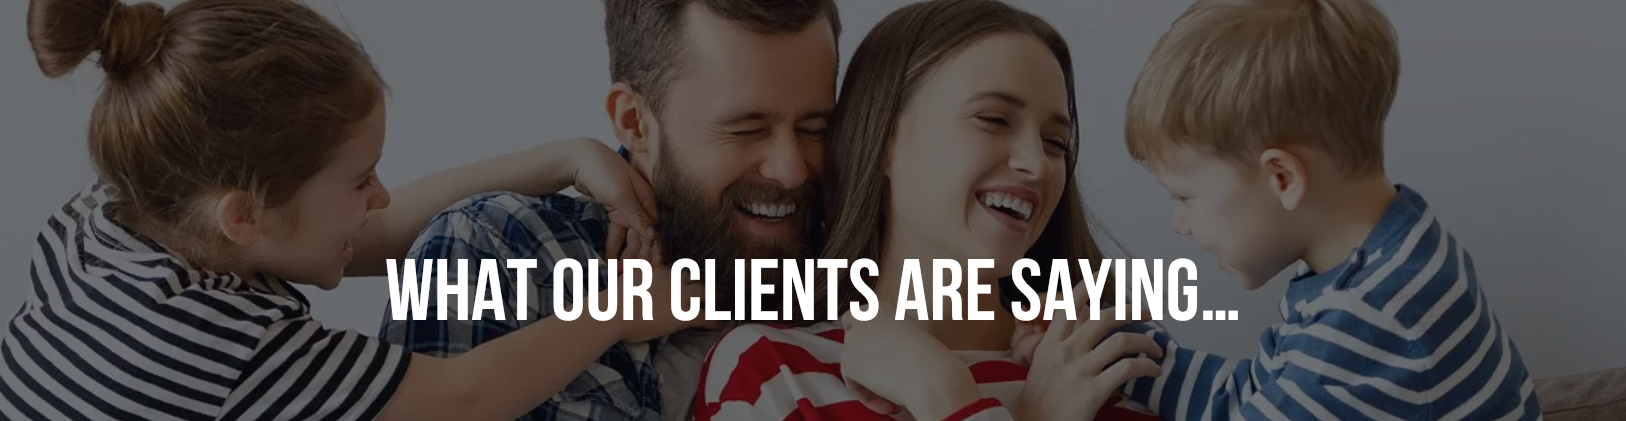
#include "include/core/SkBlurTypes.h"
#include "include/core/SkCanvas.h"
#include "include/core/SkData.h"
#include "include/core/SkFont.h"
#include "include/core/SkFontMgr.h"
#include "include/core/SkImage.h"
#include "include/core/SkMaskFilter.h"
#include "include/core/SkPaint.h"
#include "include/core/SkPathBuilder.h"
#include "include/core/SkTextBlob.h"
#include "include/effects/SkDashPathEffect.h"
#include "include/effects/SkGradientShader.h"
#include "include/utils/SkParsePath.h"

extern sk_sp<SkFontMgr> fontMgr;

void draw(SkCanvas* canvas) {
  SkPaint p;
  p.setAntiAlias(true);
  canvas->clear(SkColorSetRGB(6, 10, 15));
  canvas->drawImageRect(SkImages::DeferredFromEncodedData(SkData::MakeFromFileName("images/1.png")), SkRect::MakeLTRB(0, 0, 1626, 421), SkSamplingOptions());
  SkFont font1(fontMgr->matchFamilyStyle("Bebas Neue", SkFontStyle::Bold()), 87);
  font1.setSubpixel(true);
  p.setColor(SK_ColorWHITE);
  canvas->drawString("What our clients are saying…", 385, 320, font1, p);
}
